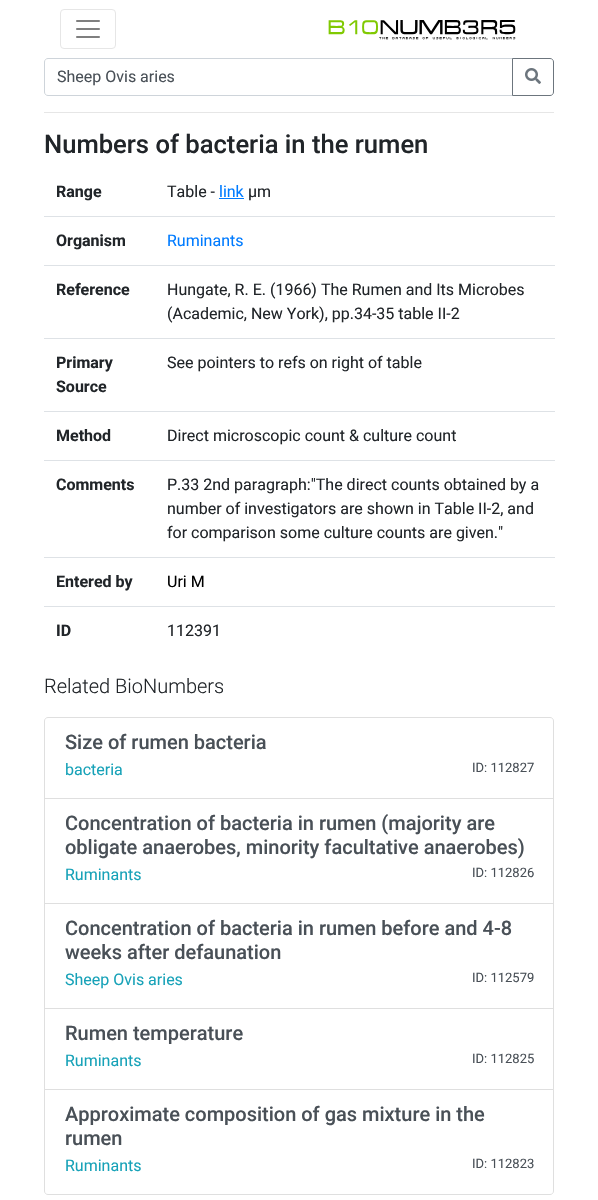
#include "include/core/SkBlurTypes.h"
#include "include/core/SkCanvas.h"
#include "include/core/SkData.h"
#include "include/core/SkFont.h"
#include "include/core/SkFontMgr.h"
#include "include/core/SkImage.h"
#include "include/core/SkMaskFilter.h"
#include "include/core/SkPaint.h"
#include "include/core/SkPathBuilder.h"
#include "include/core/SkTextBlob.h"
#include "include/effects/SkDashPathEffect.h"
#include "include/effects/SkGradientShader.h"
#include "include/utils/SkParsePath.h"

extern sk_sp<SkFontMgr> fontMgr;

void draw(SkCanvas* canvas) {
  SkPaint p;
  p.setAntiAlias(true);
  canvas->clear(SK_ColorWHITE);
  p.setStyle(SkPaint::kStroke_Style);
  p.setStrokeWidth(1);
  p.setColor(SkColorSetRGB(230, 230, 230));
  canvas->drawRoundRect(SkRect::MakeLTRB(60.5f, 9.5f, 115.5f, 48.5f), 3.5f, 3.5f, p);
  canvas->drawImageRect(SkImages::DeferredFromEncodedData(SkData::MakeFromFileName("images/1.png")), SkRect::MakeLTRB(76, 20, 100, 38), SkSamplingOptions());
  canvas->drawImageRect(SkImages::DeferredFromEncodedData(SkData::MakeFromFileName("images/2.png")), SkRect::MakeLTRB(328, 20, 516, 40), SkSamplingOptions());
  p.setColor(SkColorSetRGB(206, 212, 218));
  canvas->drawPath(SkPathBuilder().moveTo(48, 58.5f).lineTo(512.5f, 58.5f).lineTo(512.5f, 95.5f).lineTo(48, 95.5f).cubicTo(46, 95.5f, 44.5f, 94, 44.5f, 92).lineTo(44.5f, 62).cubicTo(44.5f, 60, 46, 58.5f, 48, 58.5f).close().detach(), p);
  p.setColor(SkColorSetRGB(108, 117, 125));
  canvas->drawPath(SkPathBuilder().moveTo(512.5f, 58.5f).lineTo(550, 58.5f).cubicTo(552, 58.5f, 553.5f, 60, 553.5f, 62).lineTo(553.5f, 92).cubicTo(553.5f, 94, 552, 95.5f, 550, 95.5f).lineTo(512.5f, 95.5f).close().detach(), p);
  canvas->drawImageRect(SkImages::DeferredFromEncodedData(SkData::MakeFromFileName("images/3.png")), SkRect::MakeLTRB(525, 68, 541, 84), SkSamplingOptions());
  p.setStyle(SkPaint::kFill_Style);
  p.setColor(SkColorSetRGB(230, 230, 230));
  canvas->drawRect(SkRect::MakeLTRB(44, 112, 554, 113), p);
  p.setColor(SkColorSetRGB(0, 123, 255));
  canvas->drawRect(SkRect::MakeLTRB(219, 198, 244, 199), p);
  p.setColor(SkColorSetRGB(222, 226, 230));
  canvas->drawRect(SkRect::MakeLTRB(44, 216, 555, 217), p);
  canvas->drawRect(SkRect::MakeLTRB(44, 265, 555, 266), p);
  canvas->drawRect(SkRect::MakeLTRB(44, 338, 555, 339), p);
  canvas->drawRect(SkRect::MakeLTRB(44, 411, 555, 412), p);
  canvas->drawRect(SkRect::MakeLTRB(44, 460, 555, 461), p);
  canvas->drawRect(SkRect::MakeLTRB(44, 557, 555, 558), p);
  canvas->drawRect(SkRect::MakeLTRB(44, 606, 555, 607), p);
  p.setStyle(SkPaint::kStroke_Style);
  p.setColor(SkColorSetRGB(223, 223, 223));
  canvas->drawPath(SkPathBuilder().moveTo(48, 717.5f).lineTo(550, 717.5f).cubicTo(552, 717.5f, 553.5f, 719, 553.5f, 721).lineTo(553.5f, 798.5f).lineTo(44.5f, 798.5f).lineTo(44.5f, 721).cubicTo(44.5f, 719, 46, 717.5f, 48, 717.5f).close().detach(), p);
  canvas->drawRect(SkRect::MakeLTRB(44.5f, 798.5f, 553.5f, 903.5f), p);
  canvas->drawRect(SkRect::MakeLTRB(44.5f, 903.5f, 553.5f, 1008.5f), p);
  canvas->drawRect(SkRect::MakeLTRB(44.5f, 1008.5f, 553.5f, 1089.5f), p);
  p.setStyle(SkPaint::kFill_Style);
  p.setColor(SK_ColorWHITE);
  canvas->drawPath(SkPathBuilder().moveTo(44.5f, 1089.5f).lineTo(553.5f, 1089.5f).lineTo(553.5f, 1191).cubicTo(553.5f, 1193, 552, 1194.5f, 550, 1194.5f).lineTo(48, 1194.5f).cubicTo(46, 1194.5f, 44.5f, 1193, 44.5f, 1191).close().detach(), p);
  p.setStyle(SkPaint::kStroke_Style);
  p.setColor(SkColorSetRGB(223, 223, 223));
  canvas->drawPath(SkPathBuilder().moveTo(44.5f, 1089.5f).lineTo(553.5f, 1089.5f).lineTo(553.5f, 1191).cubicTo(553.5f, 1193, 552, 1194.5f, 550, 1194.5f).lineTo(48, 1194.5f).cubicTo(46, 1194.5f, 44.5f, 1193, 44.5f, 1191).close().detach(), p);
  SkFont font1(fontMgr->matchFamilyStyle("Roboto", SkFontStyle::Normal()), 16);
  font1.setSubpixel(true);
  p.setStyle(SkPaint::kFill_Style);
  p.setColor(SkColorSetRGB(73, 80, 87));
  canvas->drawString("Sheep Ovis aries", 57, 82, font1, p);
  SkFont font2(fontMgr->matchFamilyStyle("Roboto", SkFontStyle(500, SkFontStyle::kNormal_Width, SkFontStyle::kUpright_Slant)), 25.6f);
  font2.setSubpixel(true);
  p.setColor(SkColorSetRGB(33, 37, 41));
  canvas->drawString("Numbers of bacteria in the rumen", 44, 153, font2, p);
  SkFont font3(fontMgr->matchFamilyStyle("Roboto", SkFontStyle::Bold()), 16);
  font3.setSubpixel(true);
  canvas->drawString("Range", 56, 197, font3, p);
  canvas->drawString("Table -", 167, 197, font1, p);
  p.setColor(SkColorSetRGB(0, 123, 255));
  canvas->drawString("link", 219, 197, font1, p);
  p.setColor(SkColorSetRGB(33, 37, 41));
  canvas->drawString("µm", 248, 197, font1, p);
  canvas->drawString("Organism", 56, 246, font3, p);
  p.setColor(SkColorSetRGB(0, 123, 255));
  canvas->drawString("Ruminants", 167, 246, font1, p);
  p.setColor(SkColorSetRGB(33, 37, 41));
  canvas->drawString("Reference", 56, 295, font3, p);
  canvas->drawString("Hungate, R. E. (1966) The Rumen and Its Microbes", 167, 295, font1, p);
  canvas->drawString("(Academic, New York), pp.34-35 table II-2", 167, 319, font1, p);
  canvas->drawString("Primary", 56, 368, font3, p);
  canvas->drawString("Source", 56, 392, font3, p);
  canvas->drawString("See pointers to refs on right of table", 167, 368, font1, p);
  canvas->drawString("Method", 56, 441, font3, p);
  canvas->drawString("Direct microscopic count & culture count", 167, 441, font1, p);
  canvas->drawString("Comments", 56, 490, font3, p);
  canvas->drawString("P.33 2nd paragraph:\"The direct counts obtained by a", 167, 490, font1, p);
  canvas->drawString("number of investigators are shown in Table II-2, and", 167, 514, font1, p);
  canvas->drawString("for comparison some culture counts are given.\"", 167, 538, font1, p);
  canvas->drawString("Entered by", 56, 587, font3, p);
  p.setColor(SK_ColorBLACK);
  canvas->drawString("Uri M", 167, 587, font1, p);
  p.setColor(SkColorSetRGB(33, 37, 41));
  canvas->drawString("ID", 56, 636, font3, p);
  canvas->drawString("112391", 167, 636, font1, p);
  SkFont font4(fontMgr->matchFamilyStyle("Roboto", SkFontStyle(300, SkFontStyle::kNormal_Width, SkFontStyle::kUpright_Slant)), 20);
  font4.setSubpixel(true);
  canvas->drawString("Related BioNumbers", 44, 693, font4, p);
  SkFont font5(fontMgr->matchFamilyStyle("Roboto", SkFontStyle(500, SkFontStyle::kNormal_Width, SkFontStyle::kUpright_Slant)), 20);
  font5.setSubpixel(true);
  p.setColor(SkColorSetRGB(73, 80, 87));
  canvas->drawString("Size of rumen bacteria", 65, 749, font5, p);
  p.setColor(SkColorSetRGB(23, 162, 184));
  canvas->drawString("bacteria", 65, 775, font1, p);
  SkFont font6(fontMgr->matchFamilyStyle("Roboto", SkFontStyle::Normal()), 13);
  font6.setSubpixel(true);
  p.setColor(SkColorSetRGB(73, 80, 87));
  canvas->drawString("ID: 112827", 472, 772, font6, p);
  canvas->drawString("Concentration of bacteria in rumen (majority are", 65, 830, font5, p);
  canvas->drawString("obligate anaerobes, minority facultative anaerobes)", 65, 854, font5, p);
  p.setColor(SkColorSetRGB(23, 162, 184));
  canvas->drawString("Ruminants", 65, 880, font1, p);
  p.setColor(SkColorSetRGB(73, 80, 87));
  canvas->drawString("ID: 112826", 472, 877, font6, p);
  canvas->drawString("Concentration of bacteria in rumen before and 4-8", 65, 935, font5, p);
  canvas->drawString("weeks after defaunation", 65, 959, font5, p);
  p.setColor(SkColorSetRGB(23, 162, 184));
  canvas->drawString("Sheep Ovis aries", 65, 985, font1, p);
  p.setColor(SkColorSetRGB(73, 80, 87));
  canvas->drawString("ID: 112579", 472, 982, font6, p);
  canvas->drawString("Rumen temperature", 65, 1040, font5, p);
  p.setColor(SkColorSetRGB(23, 162, 184));
  canvas->drawString("Ruminants", 65, 1066, font1, p);
  p.setColor(SkColorSetRGB(73, 80, 87));
  canvas->drawString("ID: 112825", 472, 1063, font6, p);
  canvas->drawString("Approximate composition of gas mixture in the", 65, 1121, font5, p);
  canvas->drawString("rumen", 65, 1145, font5, p);
  p.setColor(SkColorSetRGB(23, 162, 184));
  canvas->drawString("Ruminants", 65, 1171, font1, p);
  p.setColor(SkColorSetRGB(73, 80, 87));
  canvas->drawString("ID: 112823", 472, 1168, font6, p);
}
